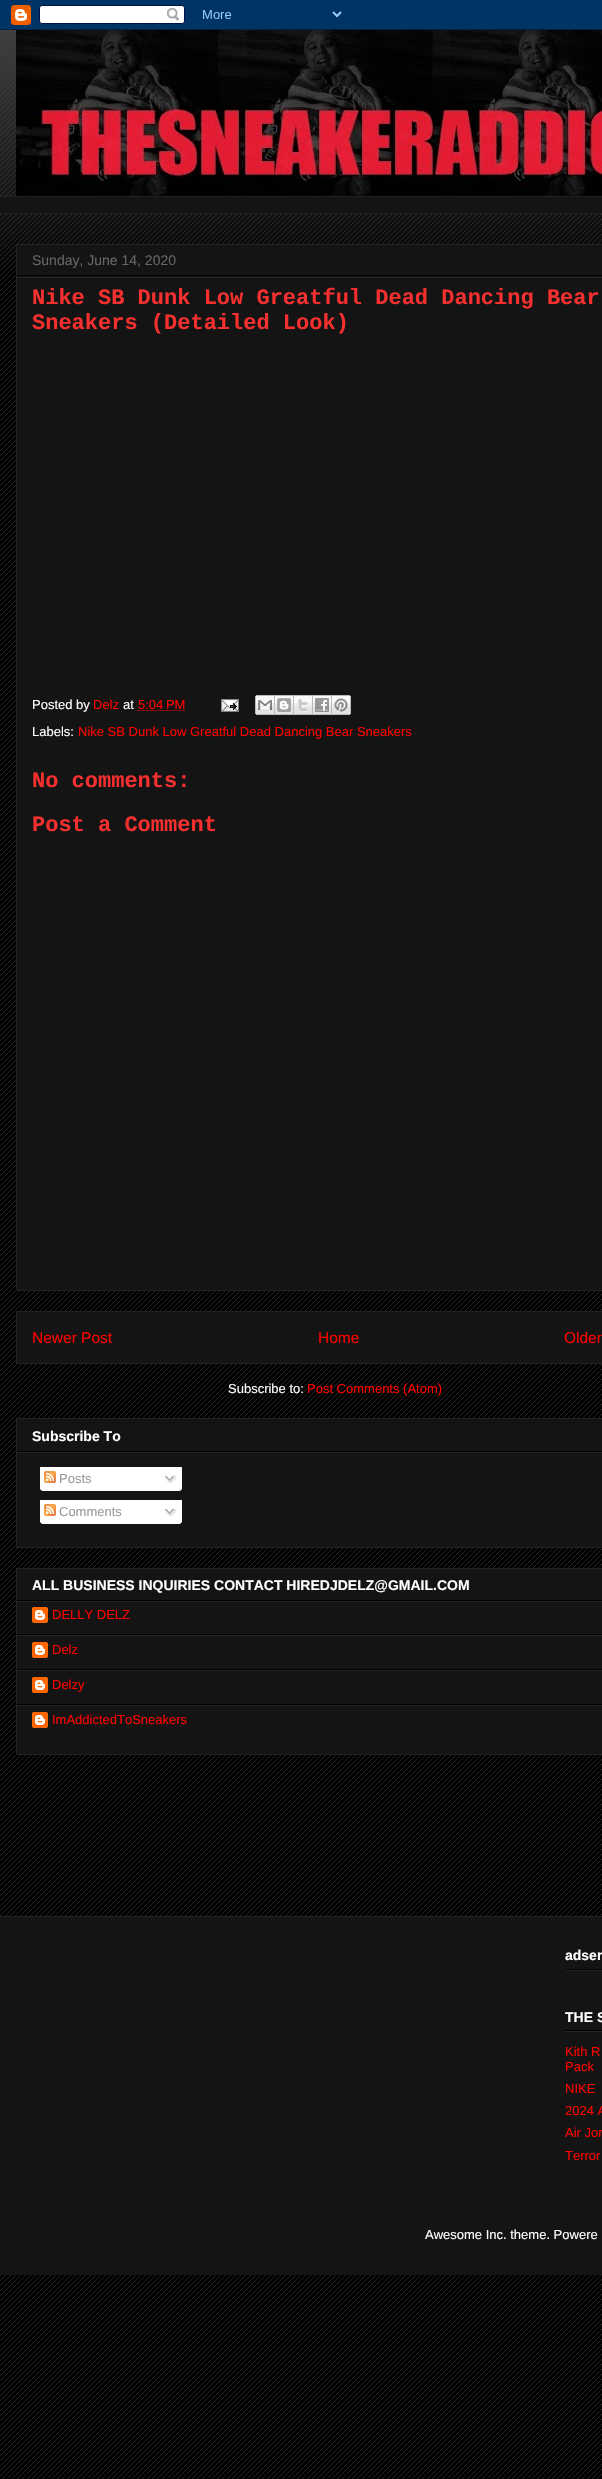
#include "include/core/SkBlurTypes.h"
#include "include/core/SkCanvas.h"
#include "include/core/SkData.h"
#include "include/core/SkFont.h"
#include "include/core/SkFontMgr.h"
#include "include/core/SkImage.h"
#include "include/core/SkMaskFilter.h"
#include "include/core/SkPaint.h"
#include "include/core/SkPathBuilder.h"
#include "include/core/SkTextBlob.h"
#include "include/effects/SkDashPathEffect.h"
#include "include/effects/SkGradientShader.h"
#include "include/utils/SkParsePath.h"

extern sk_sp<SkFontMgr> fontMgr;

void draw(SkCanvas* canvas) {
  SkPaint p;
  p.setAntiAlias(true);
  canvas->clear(SK_ColorBLACK);
  canvas->drawImageRect(SkImages::DeferredFromEncodedData(SkData::MakeFromFileName("images/1.png")), SkRect::MakeLTRB(0, 30, 602, 2479), SkSamplingOptions());
  canvas->drawImageRect(SkImages::DeferredFromEncodedData(SkData::MakeFromFileName("images/2.png")), SkRect::MakeLTRB(0, 0, 602, 30), SkSamplingOptions());
  canvas->drawImageRect(SkImages::DeferredFromEncodedData(SkData::MakeFromFileName("images/3.png")), SkRect::MakeLTRB(0, 30, 602, 268), SkSamplingOptions());
  canvas->drawImageRect(SkImages::DeferredFromEncodedData(SkData::MakeFromFileName("images/4.png")), SkRect::MakeLTRB(16, 30, 602, 196), SkSamplingOptions());
  p.setColor(SkColorSetRGB(20, 20, 20));
  canvas->drawRect(SkRect::MakeLTRB(0, 197, 602, 213), p);
  p.setColor(SkColorSetRGB(34, 34, 34));
  canvas->drawRect(SkRect::MakeLTRB(0, 196, 602, 197), p);
  canvas->drawRect(SkRect::MakeLTRB(0, 213, 602, 214), p);
  p.setColor(SkColorSetRGB(20, 20, 20));
  canvas->drawRect(SkRect::MakeLTRB(16.5f, 244.5f, 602.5f, 1290.5f), p);
  p.setStyle(SkPaint::kStroke_Style);
  p.setStrokeWidth(1);
  p.setColor(SkColorSetRGB(34, 34, 34));
  canvas->drawRect(SkRect::MakeLTRB(16.5f, 244.5f, 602.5f, 1290.5f), p);
  p.setStyle(SkPaint::kFill_Style);
  p.setColor(SK_ColorBLACK);
  canvas->drawRect(SkRect::MakeLTRB(17, 275, 602, 276), p);
  p.setColor(SkColorSetRGB(34, 34, 34));
  canvas->drawRect(SkRect::MakeLTRB(17, 277, 602, 278), p);
  p.setStyle(SkPaint::kStroke_Style);
  p.setColor(SkColorSetRGB(255, 0, 0));
  p.setPathEffect(SkDashPathEffect::Make({{1, 1}}, 0));
  canvas->drawPath(SkPathBuilder().moveTo(137.5f, 710.5f).lineTo(185, 710.5f).detach(), p);
  p.setPathEffect(nullptr);
  canvas->drawImageRect(SkImages::DeferredFromEncodedData(SkData::MakeFromFileName("images/5.png")), SkRect::MakeLTRB(221, 699, 239, 712), SkSamplingOptions());
  canvas->drawImageRect(SkImages::DeferredFromEncodedData(SkData::MakeFromFileName("images/6.png")), SkRect::MakeLTRB(255, 695, 275, 715), SkSamplingOptions());
  canvas->drawImageRect(SkImages::DeferredFromEncodedData(SkData::MakeFromFileName("images/7.png")), SkRect::MakeLTRB(275, 695, 294, 715), SkSamplingOptions());
  canvas->drawImageRect(SkImages::DeferredFromEncodedData(SkData::MakeFromFileName("images/8.png")), SkRect::MakeLTRB(294, 695, 313, 715), SkSamplingOptions());
  canvas->drawImageRect(SkImages::DeferredFromEncodedData(SkData::MakeFromFileName("images/9.png")), SkRect::MakeLTRB(313, 695, 332, 715), SkSamplingOptions());
  canvas->drawImageRect(SkImages::DeferredFromEncodedData(SkData::MakeFromFileName("images/10.png")), SkRect::MakeLTRB(332, 695, 351, 715), SkSamplingOptions());
  p.setStyle(SkPaint::kFill_Style);
  p.setColor(SkColorSetRGB(20, 20, 20));
  canvas->drawRect(SkRect::MakeLTRB(16.5f, 1311.5f, 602.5f, 1363.5f), p);
  p.setStyle(SkPaint::kStroke_Style);
  p.setColor(SkColorSetRGB(34, 34, 34));
  canvas->drawRect(SkRect::MakeLTRB(16.5f, 1311.5f, 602.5f, 1363.5f), p);
  p.setStyle(SkPaint::kFill_Style);
  p.setColor(SkColorSetRGB(20, 20, 20));
  canvas->drawRect(SkRect::MakeLTRB(16.5f, 1418.5f, 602.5f, 1547.5f), p);
  p.setStyle(SkPaint::kStroke_Style);
  p.setColor(SkColorSetRGB(34, 34, 34));
  canvas->drawRect(SkRect::MakeLTRB(16.5f, 1418.5f, 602.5f, 1547.5f), p);
  p.setStyle(SkPaint::kFill_Style);
  p.setColor(SK_ColorBLACK);
  canvas->drawRect(SkRect::MakeLTRB(17, 1451, 602, 1452), p);
  p.setColor(SkColorSetRGB(34, 34, 34));
  canvas->drawRect(SkRect::MakeLTRB(17, 1452, 602, 1453), p);
  p.setColor(SK_ColorWHITE);
  canvas->drawRect(SkRect::MakeLTRB(40, 1467, 182, 1489), p);
  canvas->drawImageRect(SkImages::DeferredFromEncodedData(SkData::MakeFromFileName("images/11.png")), SkRect::MakeLTRB(44, 1471, 56, 1483), SkSamplingOptions());
  canvas->drawImageRect(SkImages::DeferredFromEncodedData(SkData::MakeFromFileName("images/12.png")), SkRect::MakeLTRB(164, 1475, 177, 1484), SkSamplingOptions());
  canvas->drawImageRect(SkImages::DeferredFromEncodedData(SkData::MakeFromFileName("images/13.png")), SkRect::MakeLTRB(40, 1489, 182, 1491), SkSamplingOptions());
  canvas->drawRect(SkRect::MakeLTRB(40, 1500, 182, 1522), p);
  canvas->drawImageRect(SkImages::DeferredFromEncodedData(SkData::MakeFromFileName("images/11.png")), SkRect::MakeLTRB(44, 1504, 56, 1516), SkSamplingOptions());
  canvas->drawImageRect(SkImages::DeferredFromEncodedData(SkData::MakeFromFileName("images/12.png")), SkRect::MakeLTRB(164, 1508, 177, 1517), SkSamplingOptions());
  canvas->drawImageRect(SkImages::DeferredFromEncodedData(SkData::MakeFromFileName("images/13.png")), SkRect::MakeLTRB(40, 1522, 182, 1524), SkSamplingOptions());
  p.setColor(SkColorSetRGB(20, 20, 20));
  canvas->drawRect(SkRect::MakeLTRB(16.5f, 1568.5f, 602.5f, 1754.5f), p);
  p.setStyle(SkPaint::kStroke_Style);
  p.setColor(SkColorSetRGB(34, 34, 34));
  canvas->drawRect(SkRect::MakeLTRB(16.5f, 1568.5f, 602.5f, 1754.5f), p);
  p.setStyle(SkPaint::kFill_Style);
  p.setColor(SK_ColorBLACK);
  canvas->drawRect(SkRect::MakeLTRB(17, 1600, 602, 1601), p);
  p.setColor(SkColorSetRGB(34, 34, 34));
  canvas->drawRect(SkRect::MakeLTRB(17, 1601, 602, 1602), p);
  p.setColor(SK_ColorBLACK);
  canvas->drawRect(SkRect::MakeLTRB(17, 1634, 602, 1635), p);
  canvas->drawImageRect(SkImages::DeferredFromEncodedData(SkData::MakeFromFileName("images/14.png")), SkRect::MakeLTRB(32, 1607, 48, 1623), SkSamplingOptions());
  p.setColor(SkColorSetRGB(34, 34, 34));
  canvas->drawRect(SkRect::MakeLTRB(17, 1635, 602, 1636), p);
  p.setColor(SK_ColorBLACK);
  canvas->drawRect(SkRect::MakeLTRB(17, 1669, 602, 1670), p);
  canvas->drawImageRect(SkImages::DeferredFromEncodedData(SkData::MakeFromFileName("images/14.png")), SkRect::MakeLTRB(32, 1642, 48, 1658), SkSamplingOptions());
  p.setColor(SkColorSetRGB(34, 34, 34));
  canvas->drawRect(SkRect::MakeLTRB(17, 1670, 602, 1671), p);
  p.setColor(SK_ColorBLACK);
  canvas->drawRect(SkRect::MakeLTRB(17, 1704, 602, 1705), p);
  canvas->drawImageRect(SkImages::DeferredFromEncodedData(SkData::MakeFromFileName("images/14.png")), SkRect::MakeLTRB(32, 1677, 48, 1693), SkSamplingOptions());
  p.setColor(SkColorSetRGB(34, 34, 34));
  canvas->drawRect(SkRect::MakeLTRB(17, 1705, 602, 1706), p);
  canvas->drawImageRect(SkImages::DeferredFromEncodedData(SkData::MakeFromFileName("images/14.png")), SkRect::MakeLTRB(32, 1712, 48, 1728), SkSamplingOptions());
  p.setColor(SkColorSetRGB(20, 20, 20));
  canvas->drawRect(SkRect::MakeLTRB(0, 1917, 602, 2275), p);
  p.setColor(SkColorSetRGB(34, 34, 34));
  canvas->drawRect(SkRect::MakeLTRB(0, 1916, 602, 1917), p);
  p.setColor(SK_ColorBLACK);
  canvas->drawRect(SkRect::MakeLTRB(565, 1969, 602, 1970), p);
  p.setColor(SkColorSetRGB(34, 34, 34));
  canvas->drawRect(SkRect::MakeLTRB(565, 1970, 602, 1971), p);
  p.setColor(SK_ColorBLACK);
  canvas->drawRect(SkRect::MakeLTRB(565, 2030, 602, 2031), p);
  p.setColor(SkColorSetRGB(34, 34, 34));
  canvas->drawRect(SkRect::MakeLTRB(565, 2031, 602, 2032), p);
  SkFont font1(fontMgr->matchFamilyStyle("Liberation Sans", SkFontStyle::Normal()), 14);
  font1.setSubpixel(true);
  p.setColor(SkColorSetRGB(102, 102, 102));
  canvas->drawString("Sunday, June 14, 2020", 32, 265, font1, p);
  SkFont font2(fontMgr->matchFamilyStyle("Liberation Mono", SkFontStyle::Bold()), 22);
  font2.setSubpixel(true);
  p.setColor(SkColorSetRGB(246, 47, 47));
  canvas->drawString("Nike SB Dunk Low Greatful Dead Dancing Bear", 32, 304, font2, p);
  canvas->drawString("Sneakers (Detailed Look)", 32, 329, font2, p);
  SkFont font3(fontMgr->matchFamilyStyle("Liberation Sans", SkFontStyle::Normal()), 13);
  font3.setSubpixel(true);
  p.setColor(SK_ColorWHITE);
  canvas->drawString("Posted by", 32, 709, font3, p);
  p.setColor(SkColorSetRGB(255, 0, 0));
  canvas->drawString("Delz", 93, 709, font3, p);
  p.setColor(SK_ColorWHITE);
  canvas->drawString("at", 123, 709, font3, p);
  p.setColor(SkColorSetRGB(255, 0, 0));
  canvas->drawString("5:04 PM", 138, 709, font3, p);
  p.setColor(SK_ColorWHITE);
  canvas->drawString("Labels:", 32, 736, font3, p);
  p.setColor(SkColorSetRGB(255, 0, 0));
  canvas->drawString("Nike SB Dunk Low Greatful Dead Dancing Bear Sneakers", 78, 736, font3, p);
  p.setColor(SkColorSetRGB(246, 47, 47));
  canvas->drawString("No comments:", 32, 787, font2, p);
  canvas->drawString("Post a Comment", 32, 831, font2, p);
  SkFont font4(fontMgr->matchFamilyStyle("Liberation Sans", SkFontStyle::Normal()), 15.5f);
  font4.setSubpixel(true);
  p.setColor(SkColorSetRGB(255, 0, 0));
  canvas->drawString("Newer Post", 32, 1343, font4, p);
  canvas->drawString("Home", 318, 1343, font4, p);
  canvas->drawString("Older", 564, 1343, font4, p);
  p.setColor(SK_ColorWHITE);
  canvas->drawString("Subscribe to:", 228, 1393, font3, p);
  p.setColor(SkColorSetRGB(255, 0, 0));
  canvas->drawString("Post Comments (Atom)", 307, 1393, font3, p);
  SkFont font5(fontMgr->matchFamilyStyle("Liberation Sans", SkFontStyle::Bold()), 14);
  font5.setSubpixel(true);
  p.setColor(SK_ColorWHITE);
  canvas->drawString("Subscribe To", 32, 1441, font5, p);
  p.setColor(SkColorSetRGB(153, 153, 153));
  canvas->drawString("Posts", 59, 1483, font3, p);
  canvas->drawString("Comments", 59, 1516, font3, p);
  p.setColor(SK_ColorWHITE);
  canvas->drawString("ALL BUSINESS INQUIRIES CONTACT HIREDJDELZ@GMAIL.COM", 32, 1590, font5, p);
  p.setColor(SkColorSetRGB(255, 0, 0));
  canvas->drawString("DELLY DELZ", 52, 1619, font3, p);
  canvas->drawString("Delz", 52, 1654, font3, p);
  canvas->drawString("Delzy", 52, 1689, font3, p);
  canvas->drawString("ImAddictedToSneakers", 52, 1724, font3, p);
  p.setColor(SK_ColorWHITE);
  canvas->drawString("adsen", 565, 1960, font5, p);
  canvas->drawString("THE S", 565, 2022, font5, p);
  p.setColor(SkColorSetRGB(255, 0, 0));
  canvas->drawString("Kith R", 565, 2056, font3, p);
  canvas->drawString("Pack", 565, 2071, font3, p);
  canvas->drawString("NIKE", 565, 2093, font3, p);
  canvas->drawString("2024 A", 565, 2115, font3, p);
  canvas->drawString("Air Jor", 565, 2137, font3, p);
  canvas->drawString("Terror", 565, 2160, font3, p);
  p.setColor(SK_ColorWHITE);
  canvas->drawString("Awesome Inc. theme. Powere", 425, 2239, font3, p);
}
